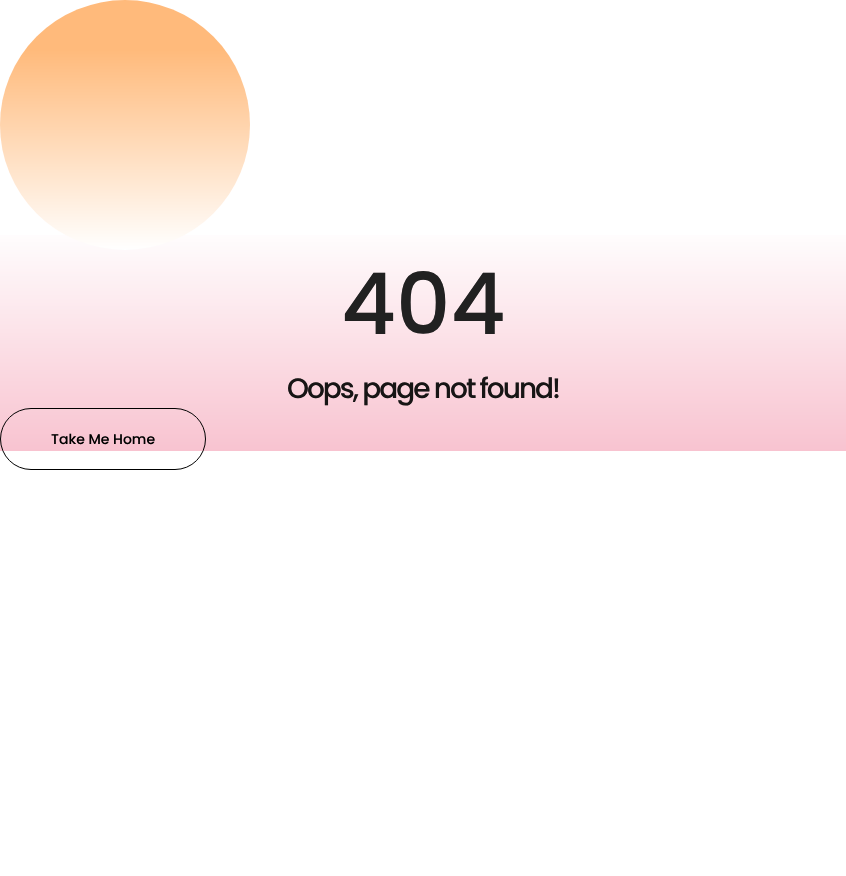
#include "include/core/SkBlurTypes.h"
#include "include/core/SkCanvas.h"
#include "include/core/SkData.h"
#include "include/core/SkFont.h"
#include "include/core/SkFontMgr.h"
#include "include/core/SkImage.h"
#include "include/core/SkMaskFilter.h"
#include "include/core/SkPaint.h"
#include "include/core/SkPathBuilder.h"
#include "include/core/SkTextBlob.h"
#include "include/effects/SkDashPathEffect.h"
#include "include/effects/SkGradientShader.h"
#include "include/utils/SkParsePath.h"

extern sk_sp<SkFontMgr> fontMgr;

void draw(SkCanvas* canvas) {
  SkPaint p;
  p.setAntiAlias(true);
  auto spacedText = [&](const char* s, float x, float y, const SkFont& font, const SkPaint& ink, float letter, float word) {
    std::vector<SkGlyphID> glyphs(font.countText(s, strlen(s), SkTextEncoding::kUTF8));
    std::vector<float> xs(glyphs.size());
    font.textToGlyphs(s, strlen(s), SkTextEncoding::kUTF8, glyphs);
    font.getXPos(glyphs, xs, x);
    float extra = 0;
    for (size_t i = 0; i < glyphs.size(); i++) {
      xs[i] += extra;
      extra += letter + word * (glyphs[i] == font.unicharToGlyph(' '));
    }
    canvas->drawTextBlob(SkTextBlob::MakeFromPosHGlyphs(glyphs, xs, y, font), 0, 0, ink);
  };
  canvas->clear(SK_ColorWHITE);
  {
    const SkColor colors[] = {SK_ColorWHITE, SkColorSetRGB(248, 195, 208)};
    const float stops[] = {0.5f, 1};
    const SkPoint ends[] = {{423, 0}, {423, 451}};
    p.setShader(SkGradientShader::MakeLinear(ends, colors, stops, 2, SkTileMode::kClamp));
    p.setAlpha(255);
  }
  canvas->drawRect(SkRect::MakeLTRB(0, 235, 846, 451), p);
  {
    const SkColor colors[] = {SkColorSetRGB(255, 186, 123), SK_ColorWHITE};
    const float stops[] = {0.2f, 1};
    const SkPoint ends[] = {{125, 0}, {125, 250}};
    p.setShader(SkGradientShader::MakeLinear(ends, colors, stops, 2, SkTileMode::kClamp));
    p.setAlpha(255);
  }
  canvas->drawCircle(125, 125, 125, p);
  p.setStyle(SkPaint::kStroke_Style);
  p.setStrokeWidth(1);
  p.setShader(nullptr);
  p.setColor(SK_ColorBLACK);
  canvas->drawRoundRect(SkRect::MakeLTRB(0.5f, 408.5f, 205.5f, 469.5f), 30.5f, 30.5f, p);
  SkFont font1(fontMgr->matchFamilyStyle("Poppins", SkFontStyle(500, SkFontStyle::kNormal_Width, SkFontStyle::kUpright_Slant)), 85);
  font1.setSubpixel(true);
  p.setStyle(SkPaint::kFill_Style);
  p.setColor(SkColorSetRGB(33, 33, 33));
  canvas->drawString("404", 341, 334, font1, p);
  SkFont font2(fontMgr->matchFamilyStyle("Poppins", SkFontStyle(500, SkFontStyle::kNormal_Width, SkFontStyle::kUpright_Slant)), 28);
  font2.setSubpixel(true);
  p.setColor(SkColorSetRGB(23, 21, 21));
  spacedText("Oops, page not found!", 287, 398, font2, p, -2, 0);
  SkFont font3(fontMgr->matchFamilyStyle("Poppins", SkFontStyle(500, SkFontStyle::kNormal_Width, SkFontStyle::kUpright_Slant)), 14);
  font3.setSubpixel(true);
  p.setColor(SK_ColorBLACK);
  canvas->drawString("Take Me Home", 51, 444, font3, p);
}
